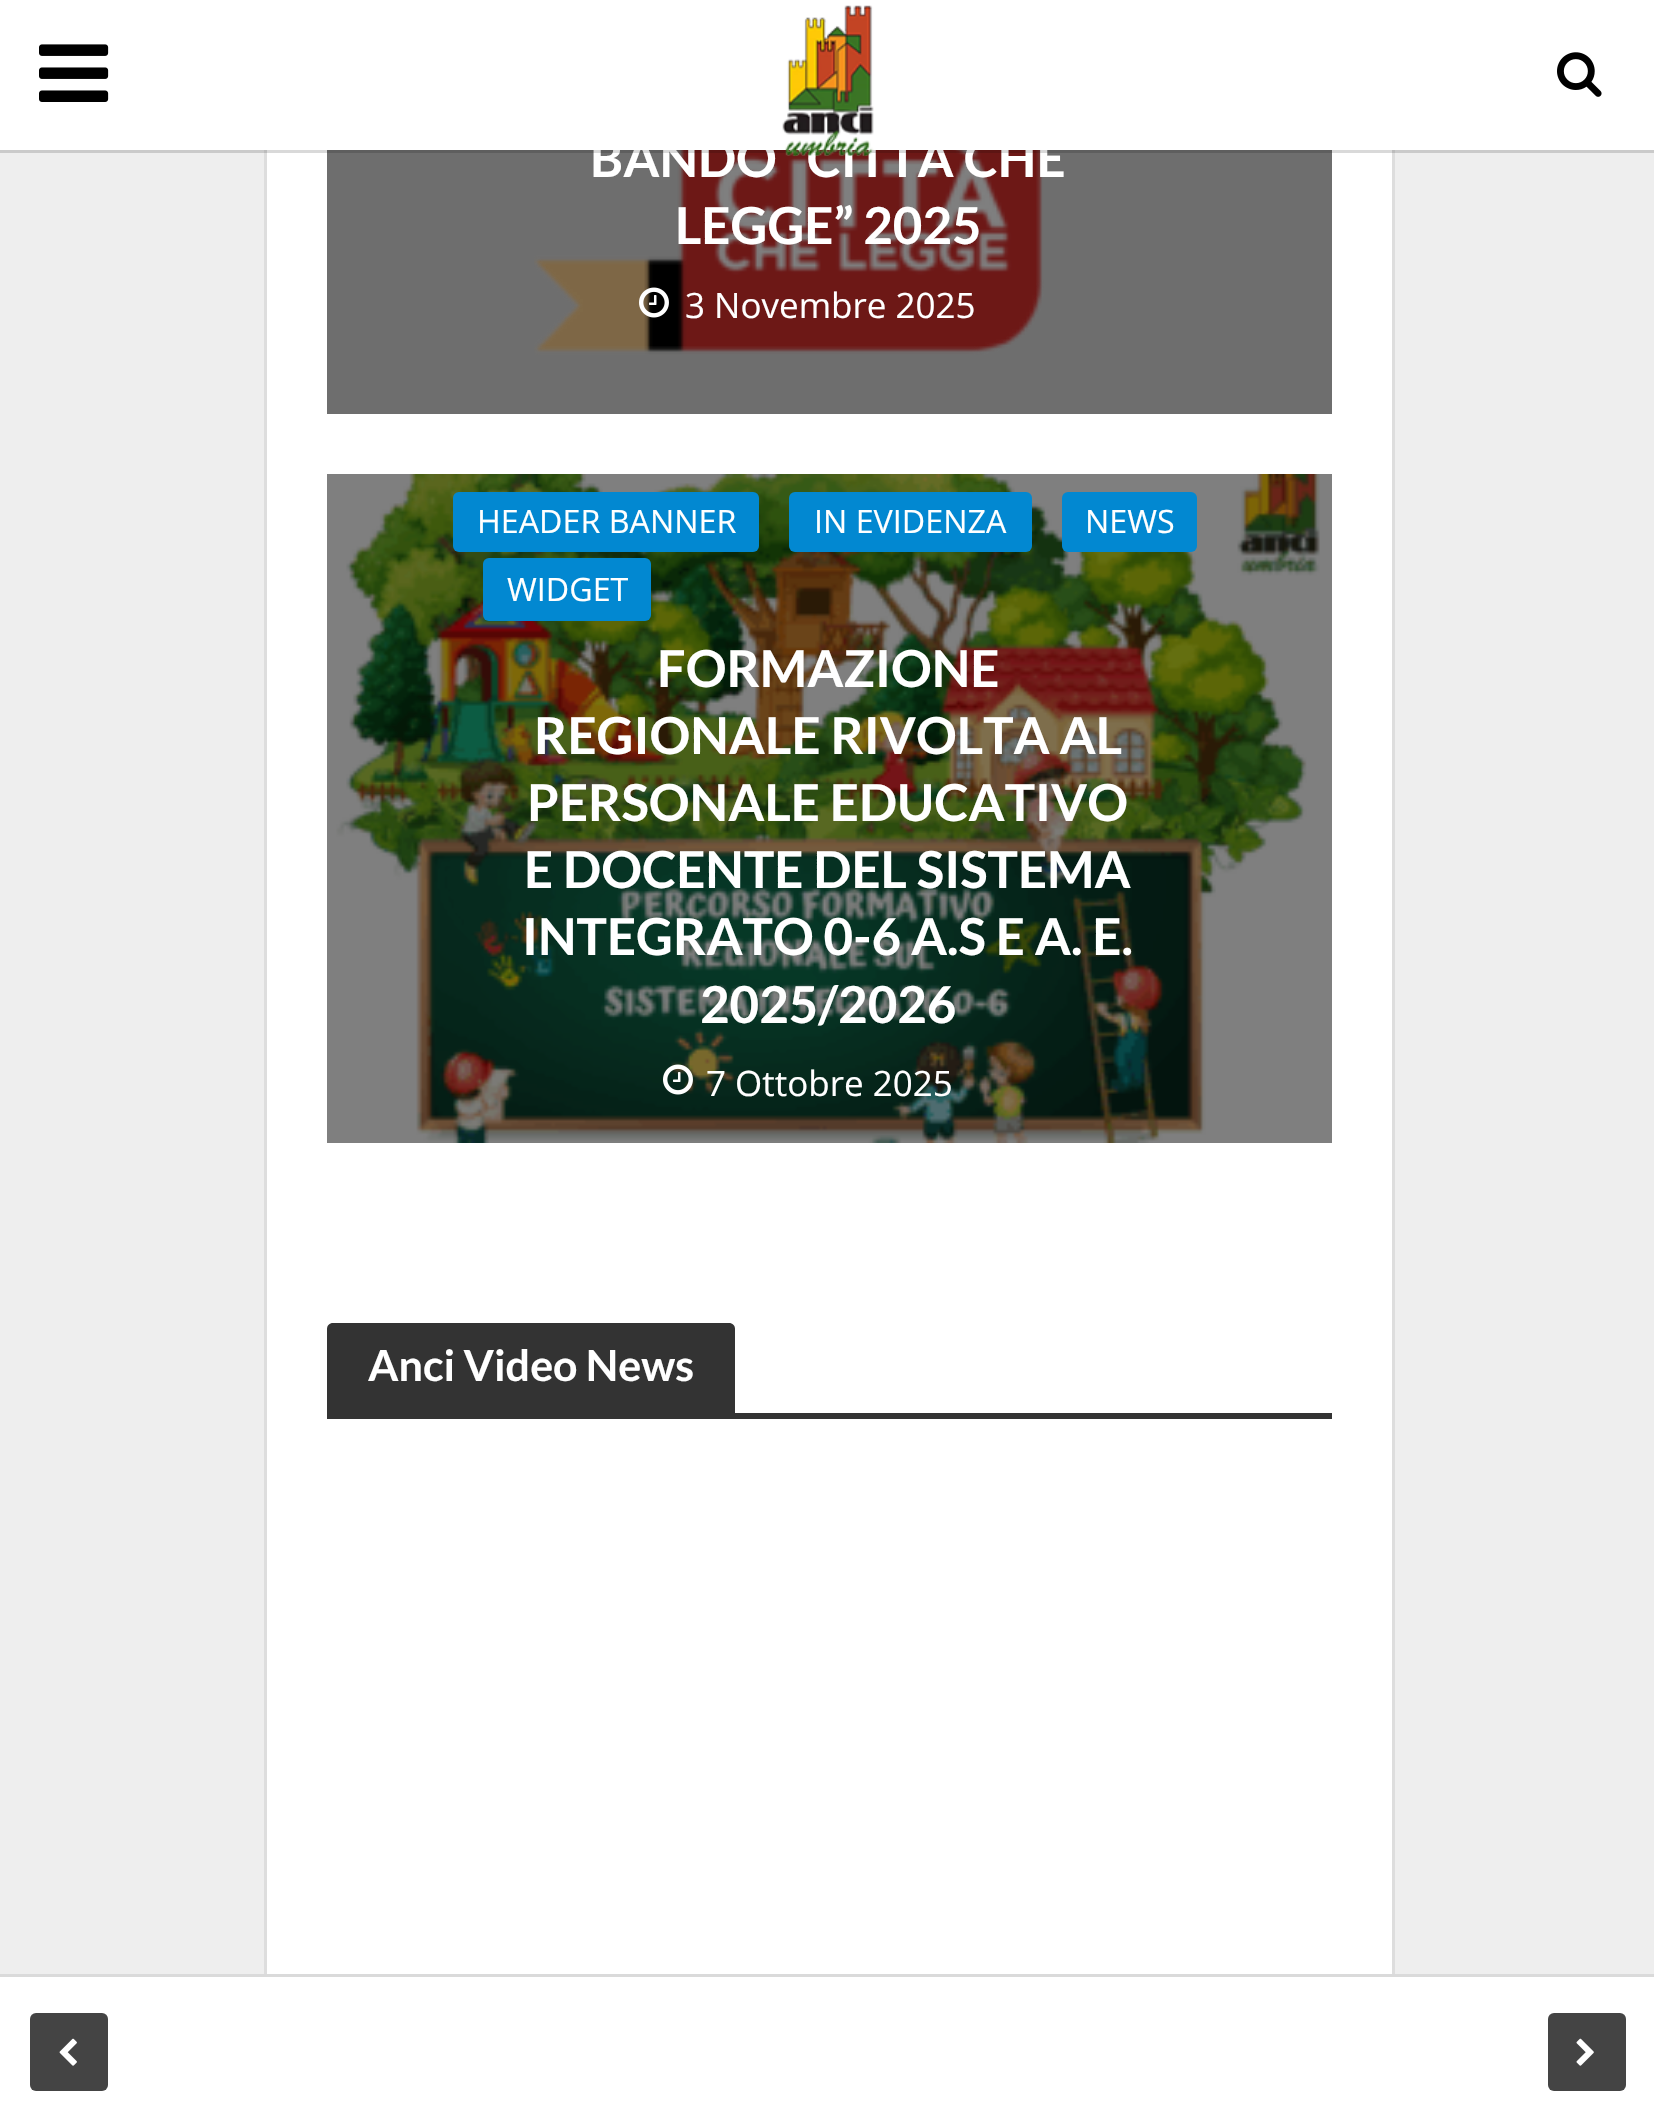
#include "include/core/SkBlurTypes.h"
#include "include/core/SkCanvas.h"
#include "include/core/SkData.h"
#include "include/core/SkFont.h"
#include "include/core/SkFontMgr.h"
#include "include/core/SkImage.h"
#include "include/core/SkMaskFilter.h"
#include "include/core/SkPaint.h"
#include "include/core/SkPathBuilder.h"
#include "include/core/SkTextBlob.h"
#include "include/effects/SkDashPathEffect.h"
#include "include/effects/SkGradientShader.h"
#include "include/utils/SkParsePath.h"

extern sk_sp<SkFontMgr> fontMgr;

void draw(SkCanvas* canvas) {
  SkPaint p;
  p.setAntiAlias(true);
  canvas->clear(SkColorSetRGB(238, 238, 238));
  p.setStyle(SkPaint::kStroke_Style);
  p.setStrokeWidth(3);
  p.setColor(SkColorSetRGB(221, 221, 221));
  canvas->drawRect(SkRect::MakeLTRB(265.5f, -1.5f, 1393.5f, 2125.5f), p);
  p.setStyle(SkPaint::kFill_Style);
  p.setColor(SK_ColorWHITE);
  canvas->drawRect(SkRect::MakeLTRB(0, 0, 1654, 150), p);
  canvas->drawImageRect(SkImages::DeferredFromEncodedData(SkData::MakeFromFileName("images/1.png")), SkRect::MakeLTRB(39, 44, 109, 102), SkSamplingOptions());
  canvas->drawImageRect(SkImages::DeferredFromEncodedData(SkData::MakeFromFileName("images/3.png")), SkRect::MakeLTRB(1557, 52, 1602, 97), SkSamplingOptions());
  canvas->drawRect(SkRect::MakeLTRB(267, 150, 1392, 1974), p);
  p.setColor(SkColorSetRGB(110, 110, 110));
  canvas->drawRect(SkRect::MakeLTRB(327, 150, 1332, 414), p);
  canvas->drawImageRect(SkImages::DeferredFromEncodedData(SkData::MakeFromFileName("images/5.png")), SkRect::MakeLTRB(534, 150, 1044, 355), SkSamplingOptions());
  canvas->drawImageRect(SkImages::DeferredFromEncodedData(SkData::MakeFromFileName("images/4.png")), SkRect::MakeLTRB(639, 287, 669, 318), SkSamplingOptions());
  canvas->drawImageRect(SkImages::DeferredFromEncodedData(SkData::MakeFromFileName("images/6.png")), SkRect::MakeLTRB(327, 474, 1332, 1143), SkSamplingOptions());
  p.setColor(SkColorSetRGB(2, 136, 209));
  canvas->drawRoundRect(SkRect::MakeLTRB(453, 492, 759, 552), 6, 6, p);
  canvas->drawRoundRect(SkRect::MakeLTRB(789, 492, 1032, 552), 6, 6, p);
  canvas->drawRoundRect(SkRect::MakeLTRB(1062, 492, 1197, 552), 6, 6, p);
  canvas->drawRoundRect(SkRect::MakeLTRB(483, 558, 651, 621), 6, 6, p);
  canvas->drawImageRect(SkImages::DeferredFromEncodedData(SkData::MakeFromFileName("images/7.png")), SkRect::MakeLTRB(663, 1064, 693, 1095), SkSamplingOptions());
  p.setColor(SkColorSetRGB(51, 51, 51));
  canvas->drawPath(SkPathBuilder().moveTo(333, 1323).lineTo(729, 1323).cubicTo(732.5f, 1323, 735, 1325.5f, 735, 1329).lineTo(735, 1413).lineTo(327, 1413).lineTo(327, 1329).cubicTo(327, 1325.5f, 329.5f, 1323, 333, 1323).close().detach(), p);
  canvas->drawRect(SkRect::MakeLTRB(327, 1413, 1332, 1419), p);
  p.setColor(SK_ColorWHITE);
  canvas->drawRect(SkRect::MakeLTRB(0, 1977, 1654, 2124), p);
  p.setColor(SkColorSetRGB(218, 218, 218));
  canvas->drawRect(SkRect::MakeLTRB(0, 1974, 1654, 1977), p);
  p.setColor(SkColorSetRGB(68, 68, 68));
  canvas->drawRoundRect(SkRect::MakeLTRB(30, 2013, 108, 2091), 6, 6, p);
  canvas->drawImageRect(SkImages::DeferredFromEncodedData(SkData::MakeFromFileName("images/8.png")), SkRect::MakeLTRB(59, 2038, 77, 2066), SkSamplingOptions());
  canvas->drawRoundRect(SkRect::MakeLTRB(1548, 2013, 1626, 2091), 6, 6, p);
  canvas->drawImageRect(SkImages::DeferredFromEncodedData(SkData::MakeFromFileName("images/9.png")), SkRect::MakeLTRB(1576, 2038, 1594, 2066), SkSamplingOptions());
  SkFont font1(fontMgr->matchFamilyStyle("Lato", SkFontStyle::Bold()), 51);
  font1.setSubpixel(true);
  p.setColor(SK_ColorWHITE);
  canvas->drawString("BANDO “CITTÀ CHE", 590, 177, font1, p);
  p.setColor(SkColorSetARGB(38, 0, 0, 0));
  canvas->drawPath(SkPathBuilder().moveTo(0, -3).lineTo(0, 0).lineTo(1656, 0).lineTo(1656, 150).lineTo(0, 150).lineTo(0, 153).lineTo(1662, 153).lineTo(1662, -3).close().detach(), p);
  canvas->drawImageRect(SkImages::DeferredFromEncodedData(SkData::MakeFromFileName("images/2.png")), SkRect::MakeLTRB(782, 5, 874, 156), SkSamplingOptions());
  p.setColor(SK_ColorWHITE);
  canvas->drawString("LEGGE” 2025", 675, 244, font1, p);
  SkFont font2(fontMgr->matchFamilyStyle("Open Sans", SkFontStyle::Normal()), 35);
  font2.setSubpixel(true);
  canvas->drawString("3 Novembre 2025", 685, 318, font2, p);
  SkFont font3(fontMgr->matchFamilyStyle("Open Sans", SkFontStyle::Normal()), 32.25f);
  font3.setSubpixel(true);
  canvas->drawString("HEADER BANNER", 477, 533, font3, p);
  canvas->drawString("IN EVIDENZA", 814, 533, font3, p);
  canvas->drawString("NEWS", 1085, 533, font3, p);
  canvas->drawString("WIDGET", 507, 601, font3, p);
  canvas->drawString("FORMAZIONE", 657, 687, font1, p);
  canvas->drawString("REGIONALE RIVOLTA AL", 534, 754, font1, p);
  canvas->drawString("PERSONALE EDUCATIVO", 527, 821, font1, p);
  canvas->drawString("E DOCENTE DEL SISTEMA", 524, 888, font1, p);
  canvas->drawString("INTEGRATO 0-6 A.S E A. E.", 522, 955, font1, p);
  canvas->drawString("2025/2026", 700, 1023, font1, p);
  canvas->drawString("7 Ottobre 2025", 706, 1096, font2, p);
  SkFont font4(fontMgr->matchFamilyStyle("Lato", SkFontStyle::Bold()), 43);
  font4.setSubpixel(true);
  canvas->drawString("Anci Video News", 368, 1381, font4, p);
}
